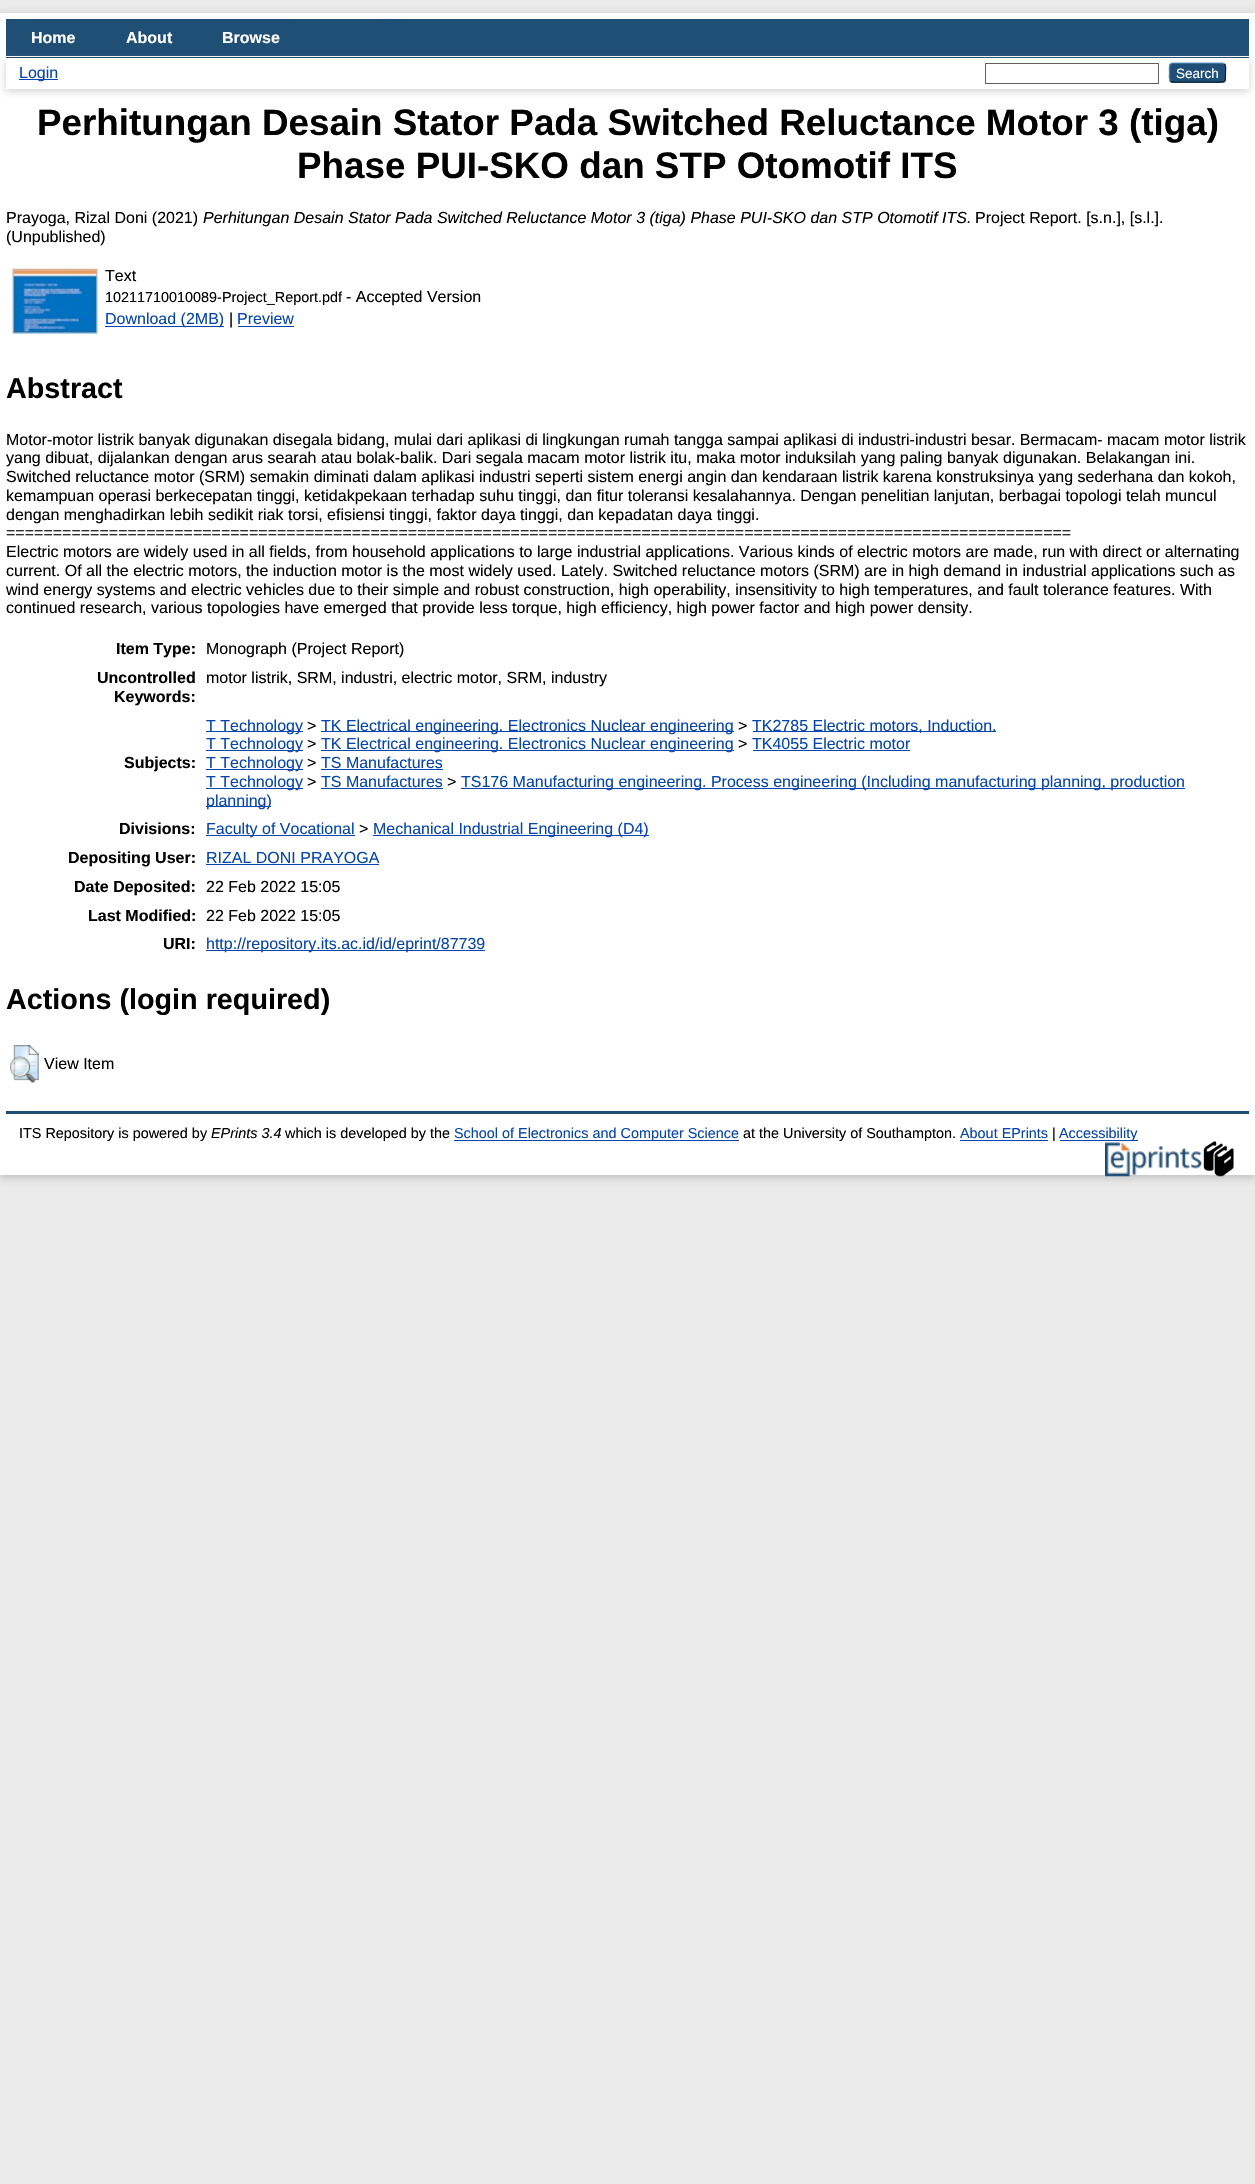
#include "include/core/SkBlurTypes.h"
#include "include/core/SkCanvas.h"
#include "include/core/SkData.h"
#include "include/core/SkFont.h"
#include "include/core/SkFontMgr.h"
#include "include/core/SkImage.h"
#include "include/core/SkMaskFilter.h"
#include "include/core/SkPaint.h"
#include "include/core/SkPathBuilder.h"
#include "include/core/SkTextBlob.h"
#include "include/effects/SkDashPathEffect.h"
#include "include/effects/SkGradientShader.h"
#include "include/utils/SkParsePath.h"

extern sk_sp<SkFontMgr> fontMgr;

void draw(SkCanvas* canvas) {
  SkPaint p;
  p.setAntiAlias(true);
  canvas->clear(SkColorSetRGB(234, 234, 234));
  p.setColor(SkColorSetARGB(77, 100, 100, 100));
  p.setMaskFilter(SkMaskFilter::MakeBlur(kNormal_SkBlurStyle, 4));
  canvas->drawRect(SkRect::MakeLTRB(0, 15, 1255, 1178), p);
  p.setMaskFilter(nullptr);
  p.setColor(SK_ColorWHITE);
  canvas->drawRect(SkRect::MakeLTRB(0, 13, 1255, 1175), p);
  canvas->drawImageRect(SkImages::DeferredFromEncodedData(SkData::MakeFromFileName("images/1.png")), SkRect::MakeLTRB(33, 18, 412, 19), SkSamplingOptions());
  p.setColor(SkColorSetRGB(32, 79, 118));
  canvas->drawRect(SkRect::MakeLTRB(6, 19, 1249, 58), p);
  p.setColor(SK_ColorWHITE);
  canvas->drawRect(SkRect::MakeLTRB(6, 56, 1249, 57), p);
  p.setColor(SkColorSetARGB(77, 100, 100, 100));
  p.setMaskFilter(SkMaskFilter::MakeBlur(kNormal_SkBlurStyle, 4));
  canvas->drawRect(SkRect::MakeLTRB(6, 60, 1249, 91), p);
  p.setMaskFilter(nullptr);
  p.setColor(SK_ColorWHITE);
  canvas->drawRect(SkRect::MakeLTRB(6, 58, 1249, 89), p);
  p.setColor(SkColorSetRGB(6, 69, 173));
  canvas->drawRect(SkRect::MakeLTRB(19, 79, 58, 80), p);
  p.setStyle(SkPaint::kStroke_Style);
  p.setStrokeWidth(1);
  p.setColor(SkColorSetRGB(96, 96, 96));
  canvas->drawRect(SkRect::MakeLTRB(985.5f, 63.5f, 1158.5f, 83.5f), p);
  p.setStyle(SkPaint::kFill_Style);
  p.setColor(SkColorSetRGB(31, 79, 118));
  canvas->drawRoundRect(SkRect::MakeLTRB(1169, 63, 1226, 83), 4, 4, p);
  p.setStyle(SkPaint::kStroke_Style);
  p.setStrokeWidth(1.2f);
  p.setColor(SkColorSetRGB(91, 151, 199));
  canvas->drawPath(SkPathBuilder().moveTo(1170.5f, 64).lineTo(1172, 63).lineTo(1223, 63).lineTo(1224.5f, 64).detach(), p);
  p.setColor(SkColorSetRGB(13, 33, 49));
  canvas->drawPath(SkPathBuilder().moveTo(1224.5f, 64).cubicTo(1226.5f, 66, 1225.5f, 70, 1225.5f, 72.5f).cubicTo(1225.5f, 83.5f, 1226, 82, 1214, 82).lineTo(1181, 82).cubicTo(1180.5f, 82, 1172.5f, 83, 1170.5f, 81).detach(), p);
  p.setColor(SkColorSetRGB(82, 135, 179));
  canvas->drawPath(SkPathBuilder().moveTo(1170.5f, 81).cubicTo(1168.5f, 79, 1169.5f, 74.5f, 1169.5f, 72.5f).cubicTo(1169.5f, 70.5f, 1168.5f, 66, 1170.5f, 64).detach(), p);
  canvas->drawImageRect(SkImages::DeferredFromEncodedData(SkData::MakeFromFileName("images/2.png")), SkRect::MakeLTRB(12, 268, 98, 334), SkSamplingOptions());
  p.setStyle(SkPaint::kFill_Style);
  p.setColor(SkColorSetRGB(6, 69, 173));
  canvas->drawRect(SkRect::MakeLTRB(105, 326, 224, 327), p);
  canvas->drawRect(SkRect::MakeLTRB(238, 326, 294, 327), p);
  canvas->drawRect(SkRect::MakeLTRB(206, 731, 303, 732), p);
  canvas->drawRect(SkRect::MakeLTRB(321, 731, 734, 732), p);
  canvas->drawRect(SkRect::MakeLTRB(753, 731, 996, 732), p);
  canvas->drawRect(SkRect::MakeLTRB(206, 750, 303, 751), p);
  canvas->drawRect(SkRect::MakeLTRB(321, 750, 734, 751), p);
  canvas->drawRect(SkRect::MakeLTRB(753, 750, 910, 751), p);
  canvas->drawRect(SkRect::MakeLTRB(206, 769, 303, 770), p);
  canvas->drawRect(SkRect::MakeLTRB(321, 769, 443, 770), p);
  canvas->drawRect(SkRect::MakeLTRB(206, 788, 303, 789), p);
  canvas->drawRect(SkRect::MakeLTRB(321, 788, 443, 789), p);
  canvas->drawRect(SkRect::MakeLTRB(461, 788, 1185, 789), p);
  canvas->drawRect(SkRect::MakeLTRB(206, 806, 271, 807), p);
  canvas->drawRect(SkRect::MakeLTRB(206, 835, 355, 836), p);
  canvas->drawRect(SkRect::MakeLTRB(373, 835, 649, 836), p);
  canvas->drawRect(SkRect::MakeLTRB(206, 864, 379, 865), p);
  canvas->drawRect(SkRect::MakeLTRB(206, 950, 485, 951), p);
  canvas->drawImageRect(SkImages::DeferredFromEncodedData(SkData::MakeFromFileName("images/3.png")), SkRect::MakeLTRB(10, 1045, 39, 1083), SkSamplingOptions());
  p.setColor(SkColorSetRGB(32, 79, 118));
  canvas->drawRect(SkRect::MakeLTRB(6, 1111, 1249, 1114), p);
  p.setColor(SkColorSetRGB(6, 69, 173));
  canvas->drawRect(SkRect::MakeLTRB(454, 1140, 739, 1141), p);
  canvas->drawRect(SkRect::MakeLTRB(960, 1140, 1048, 1141), p);
  canvas->drawRect(SkRect::MakeLTRB(1060, 1140, 1138, 1141), p);
  canvas->drawImageRect(SkImages::DeferredFromEncodedData(SkData::MakeFromFileName("images/4.png")), SkRect::MakeLTRB(1105, 1142, 1202, 1177), SkSamplingOptions());
  canvas->drawImageRect(SkImages::DeferredFromEncodedData(SkData::MakeFromFileName("images/5.png")), SkRect::MakeLTRB(1203, 1141, 1234, 1177), SkSamplingOptions());
  SkFont font1(fontMgr->matchFamilyStyle("Liberation Sans", SkFontStyle::Bold()), 16);
  font1.setSubpixel(true);
  p.setColor(SK_ColorWHITE);
  canvas->drawString("Home", 31, 43, font1, p);
  canvas->drawString("About", 126, 43, font1, p);
  canvas->drawString("Browse", 222, 43, font1, p);
  SkFont font2(fontMgr->matchFamilyStyle("Liberation Sans", SkFontStyle::Normal()), 16);
  font2.setSubpixel(true);
  p.setColor(SkColorSetRGB(6, 69, 173));
  canvas->drawString("Login", 19, 78, font2, p);
  SkFont font3(fontMgr->matchFamilyStyle("Liberation Sans", SkFontStyle::Normal()), 13.5f);
  font3.setSubpixel(true);
  p.setColor(SK_ColorWHITE);
  canvas->drawString("Search", 1176, 78, font3, p);
  SkFont font4(fontMgr->matchFamilyStyle("Liberation Sans", SkFontStyle::Bold()), 36.8f);
  font4.setSubpixel(true);
  p.setColor(SK_ColorBLACK);
  canvas->drawString("Perhitungan Desain Stator Pada Switched Reluctance Motor 3 (tiga)", 37, 135, font4, p);
  canvas->drawString("Phase PUI-SKO dan STP Otomotif ITS", 297, 178, font4, p);
  canvas->drawString("Prayoga, Rizal Doni (2021)", 6, 223, font2, p);
  SkFont font5(fontMgr->matchFamilyStyle("Liberation Sans", SkFontStyle::Italic()), 16);
  font5.setSubpixel(true);
  canvas->drawString("Perhitungan Desain Stator Pada Switched Reluctance Motor 3 (tiga) Phase PUI-SKO dan STP Otomotif ITS.", 203, 223, font5, p);
  canvas->drawString("Project Report. [s.n.], [s.l.].", 975, 223, font2, p);
  canvas->drawString("(Unpublished)", 6, 242, font2, p);
  canvas->drawString("Text", 105, 281, font2, p);
  SkFont font6(fontMgr->matchFamilyStyle("Liberation Sans", SkFontStyle::Normal()), 14.4f);
  font6.setSubpixel(true);
  canvas->drawString("10211710010089-Project_Report.pdf", 105, 302, font6, p);
  canvas->drawString("- Accepted Version", 346, 302, font2, p);
  p.setColor(SkColorSetRGB(6, 69, 173));
  canvas->drawString("Download (2MB)", 105, 324, font2, p);
  p.setColor(SK_ColorBLACK);
  canvas->drawString("|", 229, 324, font2, p);
  p.setColor(SkColorSetRGB(6, 69, 173));
  canvas->drawString("Preview", 237, 324, font2, p);
  SkFont font7(fontMgr->matchFamilyStyle("Liberation Sans", SkFontStyle::Bold()), 28.75f);
  font7.setSubpixel(true);
  p.setColor(SK_ColorBLACK);
  canvas->drawString("Abstract", 6, 398, font7, p);
  canvas->drawString("Motor-motor listrik banyak digunakan disegala bidang, mulai dari aplikasi di lingkungan rumah tangga sampai aplikasi di industri-industri besar. Bermacam- macam motor listrik", 6, 445, font2, p);
  canvas->drawString("yang dibuat, dijalankan dengan arus searah atau bolak-balik. Dari segala macam motor listrik itu, maka motor induksilah yang paling banyak digunakan. Belakangan ini.", 6, 463, font2, p);
  canvas->drawString("Switched reluctance motor (SRM) semakin diminati dalam aplikasi industri seperti sistem energi angin dan kendaraan listrik karena konstruksinya yang sederhana dan kokoh,", 6, 482, font2, p);
  canvas->drawString("kemampuan operasi berkecepatan tinggi, ketidakpekaan terhadap suhu tinggi, dan fitur toleransi kesalahannya. Dengan penelitian lanjutan, berbagai topologi telah muncul", 6, 501, font2, p);
  canvas->drawString("dengan menghadirkan lebih sedikit riak torsi, efisiensi tinggi, faktor daya tinggi, dan kepadatan daya tinggi.", 6, 520, font2, p);
  canvas->drawString("==================================================================================================================", 6, 538, font2, p);
  canvas->drawString("Electric motors are widely used in all fields, from household applications to large industrial applications. Various kinds of electric motors are made, run with direct or alternating", 6, 557, font2, p);
  canvas->drawString("current. Of all the electric motors, the induction motor is the most widely used. Lately. Switched reluctance motors (SRM) are in high demand in industrial applications such as", 6, 576, font2, p);
  canvas->drawString("wind energy systems and electric vehicles due to their simple and robust construction, high operability, insensitivity to high temperatures, and fault tolerance features. With", 6, 595, font2, p);
  canvas->drawString("continued research, various topologies have emerged that provide less torque, high efficiency, high power factor and high power density.", 6, 613, font2, p);
  canvas->drawString("Item Type:", 116, 654, font1, p);
  canvas->drawString("Monograph (Project Report)", 206, 654, font2, p);
  canvas->drawString("Uncontrolled", 97, 683, font1, p);
  canvas->drawString("Keywords:", 114, 702, font1, p);
  canvas->drawString("motor listrik, SRM, industri, electric motor, SRM, industry", 206, 683, font2, p);
  canvas->drawString("Subjects:", 124, 768, font1, p);
  p.setColor(SkColorSetRGB(6, 69, 173));
  canvas->drawString("T Technology", 206, 731, font2, p);
  p.setColor(SK_ColorBLACK);
  canvas->drawString(">", 307, 731, font2, p);
  p.setColor(SkColorSetRGB(6, 69, 173));
  canvas->drawString("TK Electrical engineering. Electronics Nuclear engineering", 321, 731, font2, p);
  p.setColor(SK_ColorBLACK);
  canvas->drawString(">", 738, 731, font2, p);
  p.setColor(SkColorSetRGB(6, 69, 173));
  canvas->drawString("TK2785 Electric motors, Induction.", 752, 731, font2, p);
  canvas->drawString("T Technology", 206, 749, font2, p);
  p.setColor(SK_ColorBLACK);
  canvas->drawString(">", 307, 749, font2, p);
  p.setColor(SkColorSetRGB(6, 69, 173));
  canvas->drawString("TK Electrical engineering. Electronics Nuclear engineering", 321, 749, font2, p);
  p.setColor(SK_ColorBLACK);
  canvas->drawString(">", 738, 749, font2, p);
  p.setColor(SkColorSetRGB(6, 69, 173));
  canvas->drawString("TK4055 Electric motor", 752, 749, font2, p);
  canvas->drawString("T Technology", 206, 768, font2, p);
  p.setColor(SK_ColorBLACK);
  canvas->drawString(">", 307, 768, font2, p);
  p.setColor(SkColorSetRGB(6, 69, 173));
  canvas->drawString("TS Manufactures", 321, 768, font2, p);
  canvas->drawString("T Technology", 206, 787, font2, p);
  p.setColor(SK_ColorBLACK);
  canvas->drawString(">", 307, 787, font2, p);
  p.setColor(SkColorSetRGB(6, 69, 173));
  canvas->drawString("TS Manufactures", 321, 787, font2, p);
  p.setColor(SK_ColorBLACK);
  canvas->drawString(">", 447, 787, font2, p);
  p.setColor(SkColorSetRGB(6, 69, 173));
  canvas->drawString("TS176 Manufacturing engineering. Process engineering (Including manufacturing planning, production", 461, 787, font2, p);
  canvas->drawString("planning)", 206, 806, font2, p);
  p.setColor(SK_ColorBLACK);
  canvas->drawString("Divisions:", 119, 834, font1, p);
  p.setColor(SkColorSetRGB(6, 69, 173));
  canvas->drawString("Faculty of Vocational", 206, 834, font2, p);
  p.setColor(SK_ColorBLACK);
  canvas->drawString(">", 359, 834, font2, p);
  p.setColor(SkColorSetRGB(6, 69, 173));
  canvas->drawString("Mechanical Industrial Engineering (D4)", 373, 834, font2, p);
  p.setColor(SK_ColorBLACK);
  canvas->drawString("Depositing User:", 68, 863, font1, p);
  p.setColor(SkColorSetRGB(6, 69, 173));
  canvas->drawString("RIZAL DONI PRAYOGA", 206, 863, font2, p);
  p.setColor(SK_ColorBLACK);
  canvas->drawString("Date Deposited:", 74, 892, font1, p);
  canvas->drawString("22 Feb 2022 15:05", 206, 892, font2, p);
  canvas->drawString("Last Modified:", 88, 921, font1, p);
  canvas->drawString("22 Feb 2022 15:05", 206, 921, font2, p);
  canvas->drawString("URI:", 163, 949, font1, p);
  p.setColor(SkColorSetRGB(6, 69, 173));
  canvas->drawString("http://repository.its.ac.id/id/eprint/87739", 206, 949, font2, p);
  p.setColor(SK_ColorBLACK);
  canvas->drawString("Actions (login required)", 6, 1009, font7, p);
  canvas->drawString("View Item", 44, 1069, font2, p);
  canvas->drawString("ITS Repository is powered by", 19, 1138, font6, p);
  SkFont font8(fontMgr->matchFamilyStyle("Liberation Sans", SkFontStyle::Italic()), 14.4f);
  font8.setSubpixel(true);
  canvas->drawString("EPrints 3.4", 211, 1138, font8, p);
  canvas->drawString("which is developed by the", 285, 1138, font6, p);
  p.setColor(SkColorSetRGB(6, 69, 173));
  canvas->drawString("School of Electronics and Computer Science", 454, 1138, font6, p);
  p.setColor(SK_ColorBLACK);
  canvas->drawString("at the University of Southampton.", 743, 1138, font6, p);
  p.setColor(SkColorSetRGB(6, 69, 173));
  canvas->drawString("About EPrints", 960, 1138, font6, p);
  p.setColor(SK_ColorBLACK);
  canvas->drawString("|", 1052, 1138, font6, p);
  p.setColor(SkColorSetRGB(6, 69, 173));
  canvas->drawString("Accessibility", 1059, 1138, font6, p);
}
